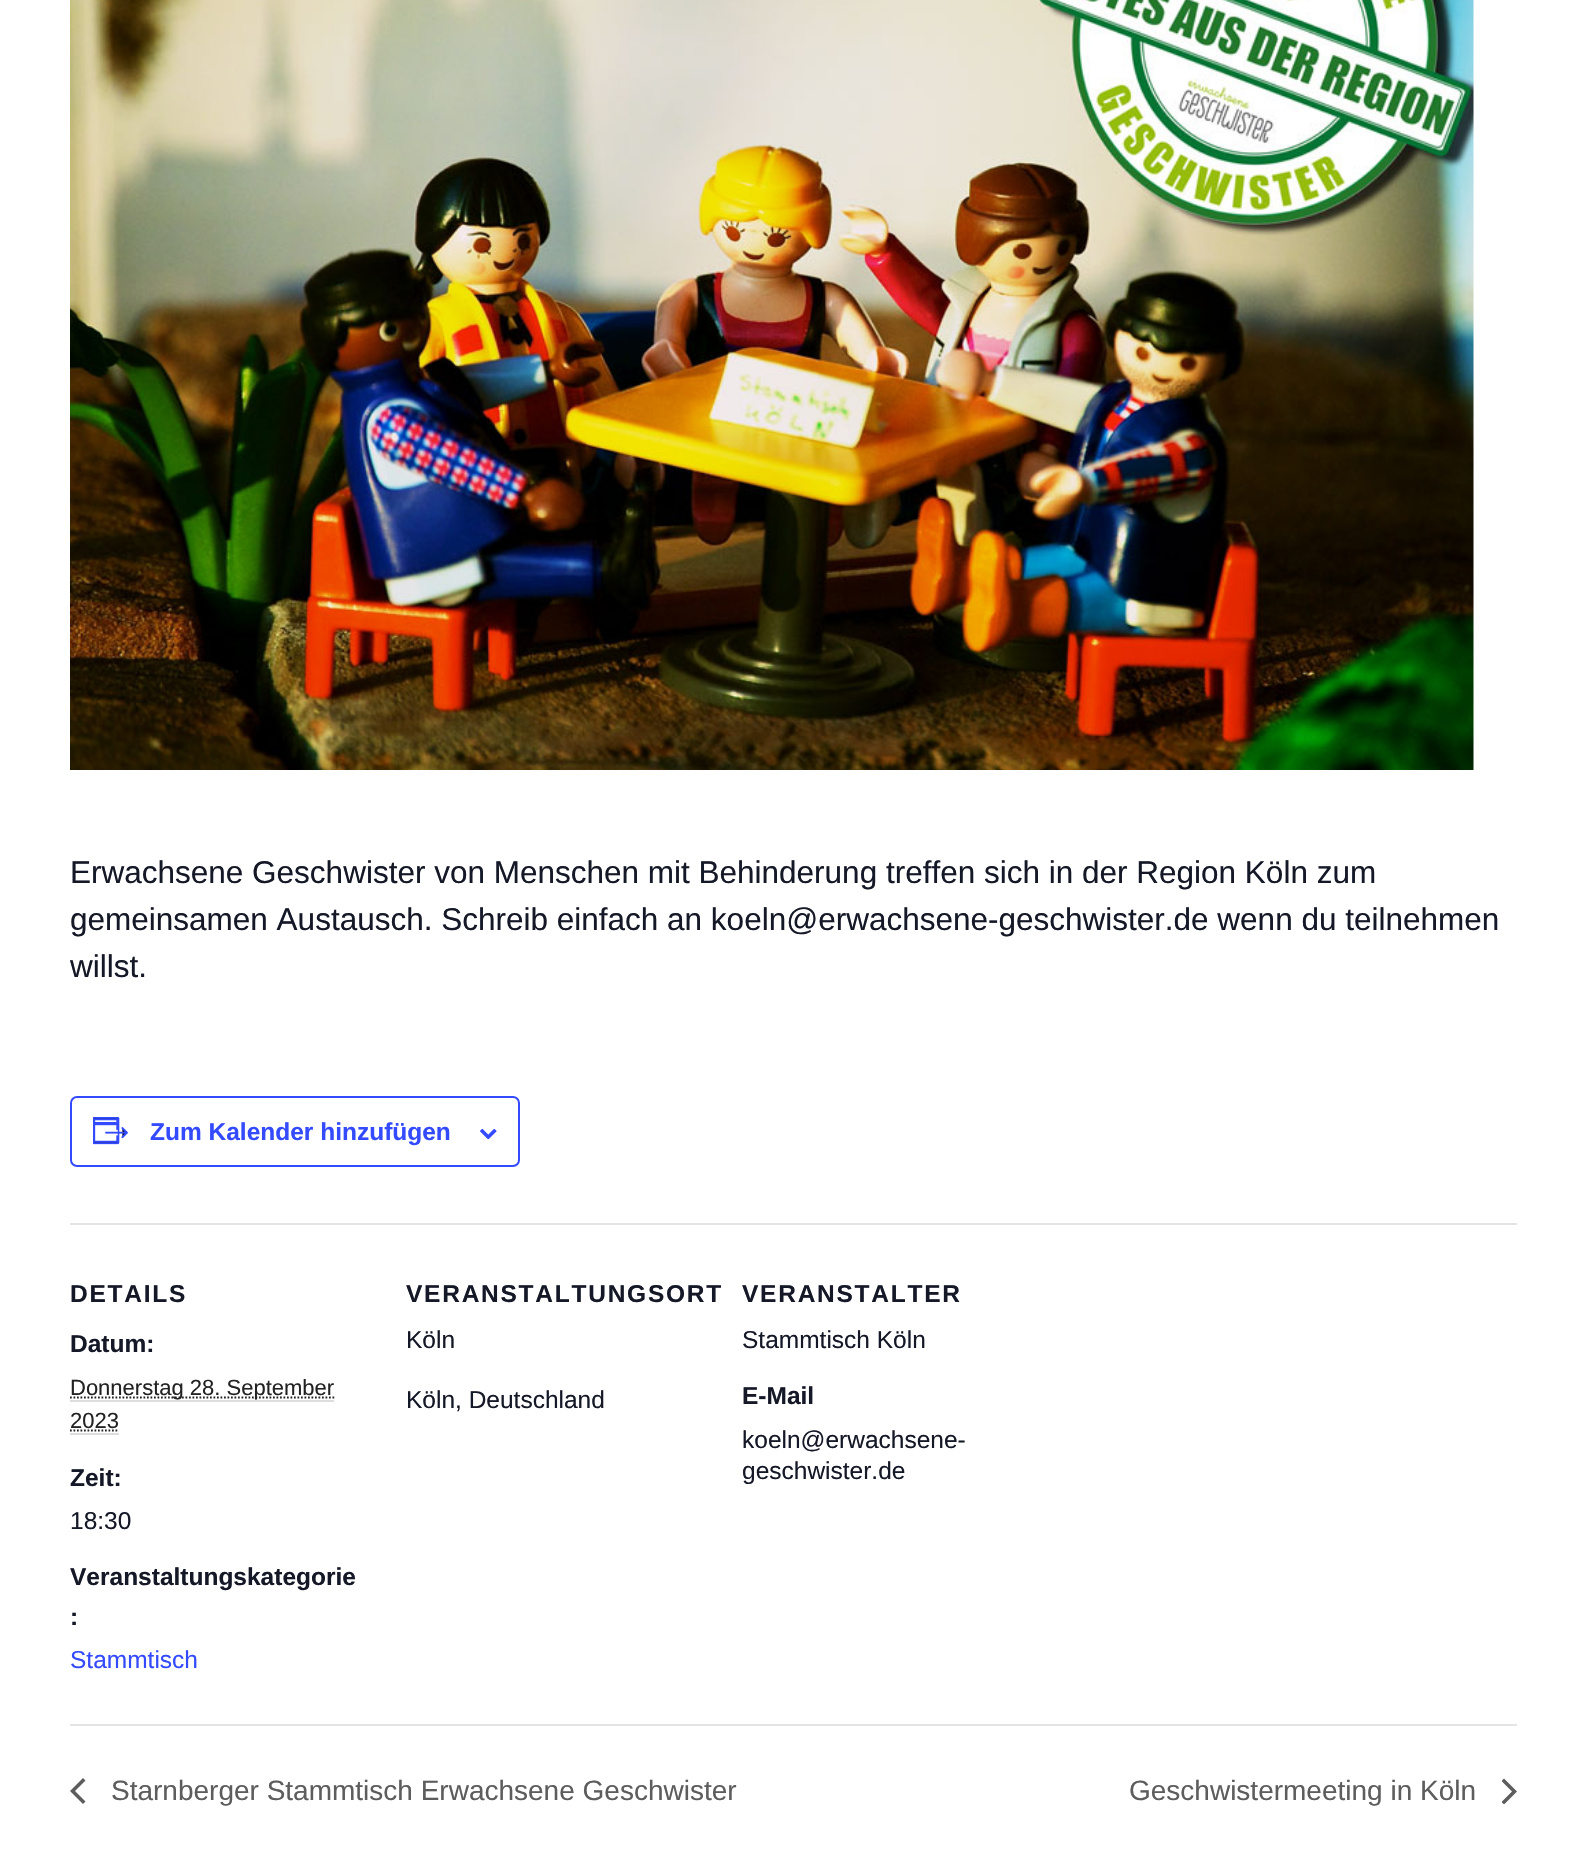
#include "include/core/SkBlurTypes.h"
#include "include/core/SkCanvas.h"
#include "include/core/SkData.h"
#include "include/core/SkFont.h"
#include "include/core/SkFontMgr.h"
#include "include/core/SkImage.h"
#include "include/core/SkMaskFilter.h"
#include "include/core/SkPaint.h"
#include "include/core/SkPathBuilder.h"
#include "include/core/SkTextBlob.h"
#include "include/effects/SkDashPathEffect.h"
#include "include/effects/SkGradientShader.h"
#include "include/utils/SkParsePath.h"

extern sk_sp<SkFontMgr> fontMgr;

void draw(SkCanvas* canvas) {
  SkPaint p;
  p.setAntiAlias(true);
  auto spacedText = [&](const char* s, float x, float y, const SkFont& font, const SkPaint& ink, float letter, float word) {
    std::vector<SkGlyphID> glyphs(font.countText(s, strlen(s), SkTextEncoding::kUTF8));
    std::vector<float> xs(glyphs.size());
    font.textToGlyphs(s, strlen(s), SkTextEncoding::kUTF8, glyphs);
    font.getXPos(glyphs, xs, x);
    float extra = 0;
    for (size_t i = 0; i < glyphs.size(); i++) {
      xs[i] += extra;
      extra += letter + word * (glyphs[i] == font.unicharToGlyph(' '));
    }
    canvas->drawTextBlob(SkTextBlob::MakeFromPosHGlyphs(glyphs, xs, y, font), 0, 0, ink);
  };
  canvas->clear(SK_ColorWHITE);
  canvas->drawImageRect(SkImages::DeferredFromEncodedData(SkData::MakeFromFileName("images/1.png")), SkRect::MakeLTRB(70, 0, 1474, 770), SkSamplingOptions());
  p.setStyle(SkPaint::kStroke_Style);
  p.setStrokeWidth(2);
  p.setColor(SkColorSetRGB(51, 74, 255));
  canvas->drawRoundRect(SkRect::MakeLTRB(71, 1097, 519, 1166), 6, 6, p);
  canvas->drawImageRect(SkImages::DeferredFromEncodedData(SkData::MakeFromFileName("images/2.png")), SkRect::MakeLTRB(93, 1117, 128, 1145), SkSamplingOptions());
  canvas->drawImageRect(SkImages::DeferredFromEncodedData(SkData::MakeFromFileName("images/3.png")), SkRect::MakeLTRB(480, 1129, 497, 1139), SkSamplingOptions());
  p.setStyle(SkPaint::kFill_Style);
  p.setColor(SkColorSetRGB(228, 228, 228));
  canvas->drawRect(SkRect::MakeLTRB(70, 1223, 1517, 1225), p);
  p.setColor(SkColorSetRGB(221, 221, 221));
  canvas->drawRect(SkRect::MakeLTRB(70, 1400, 334, 1402), p);
  p.setStyle(SkPaint::kStroke_Style);
  p.setStrokeWidth(1.8f);
  p.setColor(SkColorSetRGB(34, 34, 34));
  p.setPathEffect(SkDashPathEffect::Make({{1.75f, 1.75f}}, 0));
  canvas->drawPath(SkPathBuilder().moveTo(70, 1397.5f).lineTo(334.5f, 1397.5f).detach(), p);
  p.setPathEffect(nullptr);
  p.setStyle(SkPaint::kFill_Style);
  p.setColor(SkColorSetRGB(221, 221, 221));
  canvas->drawRect(SkRect::MakeLTRB(70, 1433, 119, 1435), p);
  p.setStyle(SkPaint::kStroke_Style);
  p.setColor(SkColorSetRGB(34, 34, 34));
  p.setPathEffect(SkDashPathEffect::Make({{1.75f, 1.75f}}, 0));
  canvas->drawPath(SkPathBuilder().moveTo(70, 1430.5f).lineTo(119, 1430.5f).detach(), p);
  p.setPathEffect(nullptr);
  p.setStyle(SkPaint::kFill_Style);
  p.setColor(SkColorSetRGB(228, 228, 228));
  canvas->drawRect(SkRect::MakeLTRB(70, 1724, 1517, 1726), p);
  p.setColor(SkColorSetRGB(93, 93, 93));
  canvas->drawPath(SkPathBuilder().moveTo(85.5f, 1801.5f).lineTo(83, 1804).lineTo(70, 1791).lineTo(83, 1778).lineTo(85.5f, 1780.5f).lineTo(75, 1791).close().detach(), p);
  canvas->save();
  canvas->clipRect(SkRect::MakeLTRB(1502, 1778, 1517, 1804));
  canvas->drawPath(SkPathBuilder().moveTo(1501.5f, 1781).lineTo(1504, 1778.5f).lineTo(1517, 1791.5f).lineTo(1504, 1804.5f).lineTo(1501.5f, 1802).lineTo(1512, 1791.5f).close().detach(), p);
  canvas->restore();
  SkFont font1(fontMgr->matchFamilyStyle("Liberation Sans", SkFontStyle::Normal()), 31.5f);
  font1.setSubpixel(true);
  p.setColor(SkColorSetRGB(20, 24, 39));
  canvas->drawString("Erwachsene Geschwister von Menschen mit Behinderung treffen sich in der Region Köln zum", 70, 883, font1, p);
  canvas->drawString("gemeinsamen Austausch. Schreib einfach an koeln@erwachsene-geschwister.de wenn du teilnehmen", 70, 930, font1, p);
  canvas->drawString("willst.", 70, 977, font1, p);
  SkFont font2(fontMgr->matchFamilyStyle("Liberation Sans", SkFontStyle::Bold()), 24.5f);
  font2.setSubpixel(true);
  p.setColor(SkColorSetRGB(51, 74, 255));
  canvas->drawString("Zum Kalender hinzufügen", 150, 1140, font2, p);
  p.setColor(SkColorSetRGB(20, 24, 39));
  spacedText("DETAILS", 70, 1302, font2, p, 1.75f, 0);
  canvas->drawString("Datum:", 70, 1352, font2, p);
  SkFont font3(fontMgr->matchFamilyStyle("Liberation Sans", SkFontStyle::Normal()), 22);
  font3.setSubpixel(true);
  p.setColor(SkColorSetRGB(34, 34, 34));
  canvas->drawString("Donnerstag 28. September", 70, 1395, font3, p);
  canvas->drawString("2023", 70, 1428, font3, p);
  p.setColor(SkColorSetRGB(20, 24, 39));
  canvas->drawString("Zeit:", 70, 1486, font2, p);
  SkFont font4(fontMgr->matchFamilyStyle("Liberation Sans", SkFontStyle::Normal()), 24.5f);
  font4.setSubpixel(true);
  canvas->drawString("18:30", 70, 1529, font4, p);
  canvas->drawString("Veranstaltungskategorie", 70, 1585, font2, p);
  canvas->drawString(":", 70, 1625, font2, p);
  p.setColor(SkColorSetRGB(51, 74, 255));
  canvas->drawString("Stammtisch", 70, 1668, font4, p);
  p.setColor(SkColorSetRGB(20, 24, 39));
  spacedText("VERANSTALTUNGSORT", 406, 1302, font2, p, 1.75f, 0);
  canvas->drawString("Köln", 406, 1348, font4, p);
  canvas->drawString("Köln, Deutschland", 406, 1408, font4, p);
  spacedText("VERANSTALTER", 742, 1302, font2, p, 1.75f, 0);
  canvas->drawString("Stammtisch Köln", 742, 1348, font4, p);
  canvas->drawString("E-Mail", 742, 1404, font2, p);
  canvas->drawString("koeln@erwachsene-", 742, 1448, font4, p);
  canvas->drawString("geschwister.de", 742, 1479, font4, p);
  SkFont font5(fontMgr->matchFamilyStyle("Liberation Sans", SkFontStyle::Normal()), 28);
  font5.setSubpixel(true);
  p.setColor(SkColorSetRGB(93, 93, 93));
  canvas->drawString("Starnberger Stammtisch Erwachsene Geschwister", 111, 1800, font5, p);
  canvas->drawString("Geschwistermeeting in Köln", 1129, 1800, font5, p);
}
